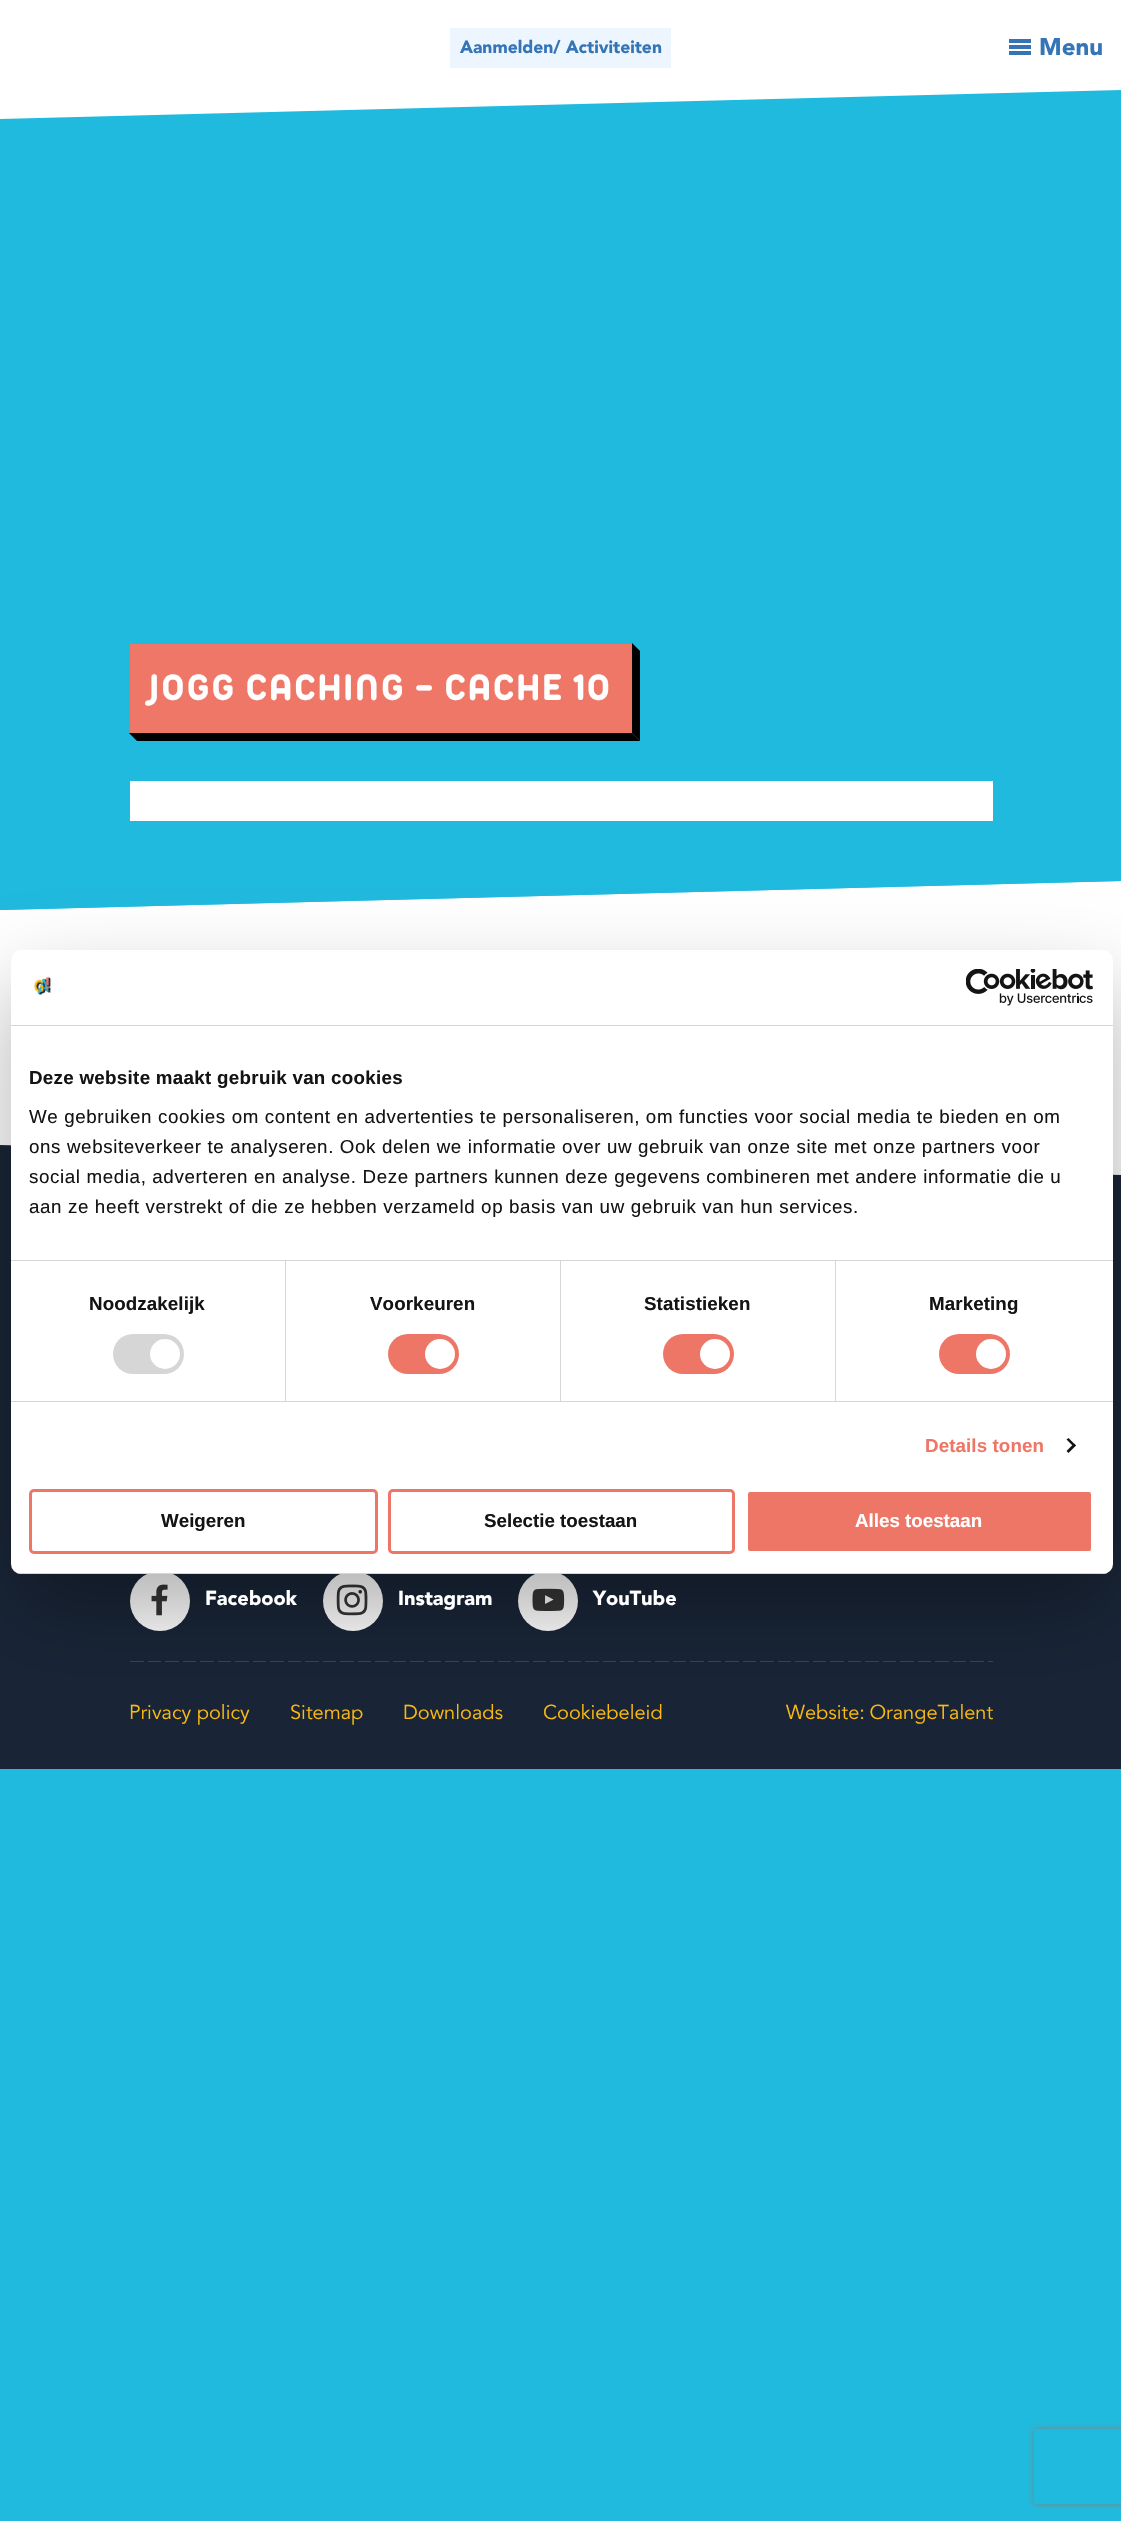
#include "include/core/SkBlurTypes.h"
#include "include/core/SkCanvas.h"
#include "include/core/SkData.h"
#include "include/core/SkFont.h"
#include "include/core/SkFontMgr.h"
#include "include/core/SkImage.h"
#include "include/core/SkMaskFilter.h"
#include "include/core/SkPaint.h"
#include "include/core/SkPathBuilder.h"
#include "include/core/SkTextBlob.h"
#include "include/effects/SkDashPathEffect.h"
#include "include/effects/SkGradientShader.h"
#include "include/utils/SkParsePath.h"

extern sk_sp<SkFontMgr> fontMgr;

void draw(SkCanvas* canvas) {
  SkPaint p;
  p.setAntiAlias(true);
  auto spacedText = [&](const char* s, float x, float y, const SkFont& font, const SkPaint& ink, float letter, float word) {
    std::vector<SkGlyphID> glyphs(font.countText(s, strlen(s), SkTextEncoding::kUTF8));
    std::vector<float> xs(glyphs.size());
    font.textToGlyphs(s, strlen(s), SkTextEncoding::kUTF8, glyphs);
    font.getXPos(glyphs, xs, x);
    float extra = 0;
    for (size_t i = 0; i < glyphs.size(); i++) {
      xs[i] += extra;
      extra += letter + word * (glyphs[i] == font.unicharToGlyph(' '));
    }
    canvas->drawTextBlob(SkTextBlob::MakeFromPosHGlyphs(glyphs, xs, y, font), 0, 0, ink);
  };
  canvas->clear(SkColorSetRGB(32, 186, 222));
  p.setColor(SK_ColorWHITE);
  canvas->drawRect(SkRect::MakeLTRB(0, 0, 1121, 29), p);
  canvas->drawPath(SkPathBuilder().moveTo(0, 29).lineTo(1121, 0).lineTo(1121, 90).lineTo(0, 119).close().detach(), p);
  p.setColor(SkColorSetRGB(237, 246, 255));
  canvas->drawRect(SkRect::MakeLTRB(450, 28, 671, 68), p);
  p.setColor(SkColorSetRGB(53, 117, 183));
  canvas->drawRect(SkRect::MakeLTRB(1009, 45, 1031, 49), p);
  canvas->drawRect(SkRect::MakeLTRB(1009, 39, 1031, 43), p);
  canvas->drawRect(SkRect::MakeLTRB(1009, 51, 1031, 55), p);
  p.setColor(SK_ColorWHITE);
  canvas->drawPath(SkPathBuilder().moveTo(0, 910).lineTo(1121, 881).lineTo(1121, 1175).lineTo(0, 1204).close().detach(), p);
  p.setColor(SkColorSetRGB(32, 186, 222));
  canvas->drawPath(SkPathBuilder().moveTo(0, 750).lineTo(1121, 721).lineTo(1121, 881).lineTo(0, 910).close().detach(), p);
  p.setColor(SkColorSetRGB(238, 119, 103));
  canvas->drawRect(SkRect::MakeLTRB(130, 644, 633, 734), p);
  p.setColor(SK_ColorBLACK);
  canvas->drawPath(SkPathBuilder().moveTo(129, 733).lineTo(632, 733).lineTo(640, 741).lineTo(137, 741).close().detach(), p);
  canvas->drawPath(SkPathBuilder().moveTo(632, 643).lineTo(640, 651).lineTo(640, 741).lineTo(632, 733).close().detach(), p);
  p.setColor(SK_ColorWHITE);
  canvas->drawRect(SkRect::MakeLTRB(130, 781, 993, 821), p);
  p.setColor(SkColorSetRGB(25, 37, 55));
  canvas->drawRect(SkRect::MakeLTRB(0, 1442, 1121, 1769), p);
  canvas->drawPath(SkPathBuilder().moveTo(0, 1145).lineTo(1121, 1175).lineTo(1121, 1472).lineTo(0, 1442).close().detach(), p);
  p.setColor(SK_ColorWHITE);
  canvas->drawCircle(160, 1601, 30, p);
  canvas->drawImageRect(SkImages::DeferredFromEncodedData(SkData::MakeFromFileName("images/3.png")), SkRect::MakeLTRB(151, 1584, 168, 1616), SkSamplingOptions());
  canvas->drawCircle(353, 1601, 30, p);
  canvas->drawImageRect(SkImages::DeferredFromEncodedData(SkData::MakeFromFileName("images/4.png")), SkRect::MakeLTRB(336, 1584, 368, 1616), SkSamplingOptions());
  canvas->drawCircle(548, 1601, 30, p);
  canvas->drawImageRect(SkImages::DeferredFromEncodedData(SkData::MakeFromFileName("images/5.png")), SkRect::MakeLTRB(532, 1588, 565, 1611), SkSamplingOptions());
  canvas->drawImageRect(SkImages::DeferredFromEncodedData(SkData::MakeFromFileName("images/6.png")), SkRect::MakeLTRB(130, 1661, 993, 1662), SkSamplingOptions());
  p.setColor(SkColorSetARGB(77, 0, 0, 0));
  p.setMaskFilter(SkMaskFilter::MakeBlur(kNormal_SkBlurStyle, 42.5f));
  canvas->drawRoundRect(SkRect::MakeLTRB(11, 990, 1113, 1614), 10, 10, p);
  p.setMaskFilter(nullptr);
  p.setColor(SK_ColorWHITE);
  canvas->drawRoundRect(SkRect::MakeLTRB(11, 950, 1113, 1574), 10, 10, p);
  p.setColor(SkColorSetRGB(214, 214, 214));
  canvas->drawRect(SkRect::MakeLTRB(11, 1025, 1113, 1026), p);
  canvas->drawImageRect(SkImages::DeferredFromEncodedData(SkData::MakeFromFileName("images/1.png")), SkRect::MakeLTRB(34, 976, 52, 995), SkSamplingOptions());
  canvas->drawImageRect(SkImages::DeferredFromEncodedData(SkData::MakeFromFileName("images/2.png")), SkRect::MakeLTRB(966, 969, 1093, 1006), SkSamplingOptions());
  canvas->drawRect(SkRect::MakeLTRB(11, 1260, 1113, 1261), p);
  canvas->drawRect(SkRect::MakeLTRB(11, 1401, 1113, 1402), p);
  canvas->drawRect(SkRect::MakeLTRB(285, 1261, 286, 1401), p);
  canvas->drawRoundRect(SkRect::MakeLTRB(113, 1334, 184, 1374), 20, 20, p);
  p.setColor(SK_ColorWHITE);
  canvas->drawCircle(165, 1354, 15, p);
  p.setColor(SkColorSetRGB(214, 214, 214));
  canvas->drawRect(SkRect::MakeLTRB(560, 1261, 561, 1401), p);
  p.setColor(SkColorSetRGB(238, 118, 102));
  canvas->drawRoundRect(SkRect::MakeLTRB(388, 1334, 459, 1374), 20, 20, p);
  p.setColor(SK_ColorWHITE);
  canvas->drawCircle(440, 1354, 15, p);
  p.setColor(SkColorSetRGB(214, 214, 214));
  canvas->drawRect(SkRect::MakeLTRB(835, 1261, 836, 1401), p);
  p.setColor(SkColorSetRGB(238, 118, 102));
  canvas->drawRoundRect(SkRect::MakeLTRB(663, 1334, 734, 1374), 20, 20, p);
  p.setColor(SK_ColorWHITE);
  canvas->drawCircle(715, 1354, 15, p);
  p.setColor(SkColorSetRGB(238, 118, 102));
  canvas->drawRoundRect(SkRect::MakeLTRB(939, 1334, 1010, 1374), 20, 20, p);
  p.setColor(SK_ColorWHITE);
  canvas->drawCircle(991, 1354, 15, p);
  p.setColor(SkColorSetRGB(20, 20, 20));
  canvas->drawPath(SkPathBuilder().moveTo(1068.5f, 1438).lineTo(1076, 1445.5f).lineTo(1074, 1447).lineTo(1066.5f, 1439.5f).close().detach(), p);
  canvas->drawPath(SkPathBuilder().moveTo(1074, 1443.5f).lineTo(1076, 1445.5f).lineTo(1068.5f, 1453).lineTo(1066.5f, 1451).close().detach(), p);
  canvas->save();
  canvas->clipPath(SkPathBuilder().moveTo(21, 950).lineTo(1103, 950).cubicTo(1108.5f, 950, 1113, 954.5f, 1113, 960).lineTo(1113, 1564).cubicTo(1113, 1569.5f, 1108.5f, 1574, 1103, 1574).lineTo(21, 1574).cubicTo(15.5f, 1574, 11, 1569.5f, 11, 1564).lineTo(11, 960).cubicTo(11, 954.5f, 15.5f, 950, 21, 950).close().detach(), true);
  p.setColor(SkColorSetRGB(214, 214, 214));
  canvas->drawRect(SkRect::MakeLTRB(11, 1573, 1113, 1574), p);
  canvas->restore();
  p.setStyle(SkPaint::kStroke_Style);
  p.setStrokeWidth(3);
  p.setColor(SkColorSetRGB(238, 118, 102));
  canvas->drawRoundRect(SkRect::MakeLTRB(30.5f, 1490.5f, 376.5f, 1552.5f), 3.5f, 3.5f, p);
  canvas->drawRoundRect(SkRect::MakeLTRB(389.5f, 1490.5f, 733.5f, 1552.5f), 3.5f, 3.5f, p);
  p.setStyle(SkPaint::kFill_Style);
  canvas->drawRoundRect(SkRect::MakeLTRB(746.5f, 1490.5f, 1092.5f, 1552.5f), 3.5f, 3.5f, p);
  p.setStyle(SkPaint::kStroke_Style);
  p.setColor(SK_ColorWHITE);
  canvas->drawRoundRect(SkRect::MakeLTRB(746.5f, 1490.5f, 1092.5f, 1552.5f), 3.5f, 3.5f, p);
  canvas->save();
  canvas->clipPath(SkPathBuilder(SkPathFillType::kEvenOdd).moveTo(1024, 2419).lineTo(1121, 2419).lineTo(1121, 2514).lineTo(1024, 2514).close().moveTo(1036.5f, 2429).lineTo(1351.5f, 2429).cubicTo(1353, 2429, 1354, 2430, 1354, 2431.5f).lineTo(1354, 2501.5f).cubicTo(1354, 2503, 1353, 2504, 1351.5f, 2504).lineTo(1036.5f, 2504).cubicTo(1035, 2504, 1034, 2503, 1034, 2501.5f).lineTo(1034, 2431.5f).cubicTo(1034, 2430, 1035, 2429, 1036.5f, 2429).close().detach(), true);
  p.setStyle(SkPaint::kFill_Style);
  p.setColor(SkColorSetRGB(128, 128, 128));
  p.setMaskFilter(SkMaskFilter::MakeBlur(kNormal_SkBlurStyle, 3));
  canvas->drawRoundRect(SkRect::MakeLTRB(1034, 2429, 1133, 2504), 2.5f, 2.5f, p);
  p.setMaskFilter(nullptr);
  canvas->restore();
  SkFont font1(fontMgr->matchFamilyStyle("avenir", SkFontStyle::Normal()), 17.5f);
  font1.setSubpixel(true);
  p.setColor(SkColorSetRGB(53, 117, 183));
  canvas->drawString("Aanmelden/ Activiteiten", 460, 53, font1, p);
  SkFont font2(fontMgr->matchFamilyStyle("avenir", SkFontStyle::Normal()), 24);
  font2.setSubpixel(true);
  canvas->drawString("Menu", 1039, 55, font2, p);
  SkFont font3(fontMgr->matchFamilyStyle("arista", SkFontStyle::Normal()), 40);
  font3.setSubpixel(true);
  p.setColor(SK_ColorWHITE);
  spacedText("JOGG CACHING - CACHE 10", 149, 700, font3, p, 1.25f, -0.5f);
  SkFont font4(fontMgr->matchFamilyStyle("Liberation Sans", SkFontStyle::Bold()), 18.75f);
  font4.setSubpixel(true);
  p.setColor(SkColorSetRGB(20, 20, 20));
  spacedText("Deze website maakt gebruik van cookies", 29, 1084, font4, p, 0.3f, 0);
  SkFont font5(fontMgr->matchFamilyStyle("Liberation Sans", SkFontStyle::Normal()), 18.75f);
  font5.setSubpixel(true);
  spacedText("We gebruiken cookies om content en advertenties te personaliseren, om functies voor social media te bieden en om", 29, 1123, font5, p, 0.62f, 0);
  spacedText("ons websiteverkeer te analyseren. Ook delen we informatie over uw gebruik van onze site met onze partners voor", 29, 1153, font5, p, 0.62f, 0);
  spacedText("social media, adverteren en analyse. Deze partners kunnen deze gegevens combineren met andere informatie die u", 29, 1183, font5, p, 0.62f, 0);
  spacedText("aan ze heeft verstrekt of die ze hebben verzameld op basis van uw gebruik van hun services.", 29, 1213, font5, p, 0.62f, 0);
  spacedText("Noodzakelijk", 89, 1310, font4, p, 0.1f, 0);
  spacedText("Voorkeuren", 370, 1310, font4, p, 0.1f, 0);
  spacedText("Statistieken", 644, 1310, font4, p, 0.1f, 0);
  spacedText("Marketing", 929, 1310, font4, p, 0.1f, 0);
  p.setColor(SkColorSetRGB(238, 118, 102));
  spacedText("Details tonen", 925, 1452, font4, p, 0.1f, 0);
  p.setColor(SkColorSetRGB(20, 20, 20));
  canvas->drawString("Weigeren", 161, 1527, font4, p);
  canvas->drawString("Selectie toestaan", 484, 1527, font4, p);
  p.setColor(SK_ColorWHITE);
  canvas->drawString("Alles toestaan", 855, 1527, font4, p);
  SkFont font6(fontMgr->matchFamilyStyle("avenir", SkFontStyle::Normal()), 20);
  font6.setSubpixel(true);
  canvas->drawString("Facebook", 205, 1605, font6, p);
  canvas->drawString("Instagram", 398, 1605, font6, p);
  canvas->drawString("YouTube", 593, 1605, font6, p);
  SkFont font7(fontMgr->matchFamilyStyle("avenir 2", SkFontStyle::Normal()), 20);
  font7.setSubpixel(true);
  p.setColor(SkColorSetRGB(251, 186, 16));
  canvas->drawString("Privacy policy", 129, 1719, font7, p);
  canvas->drawString("Sitemap", 290, 1719, font7, p);
  canvas->drawString("Downloads", 403, 1719, font7, p);
  canvas->drawString("Cookiebeleid", 543, 1719, font7, p);
  spacedText("Website: OrangeTalent", 786, 1719, font7, p, 0, -1);
}
